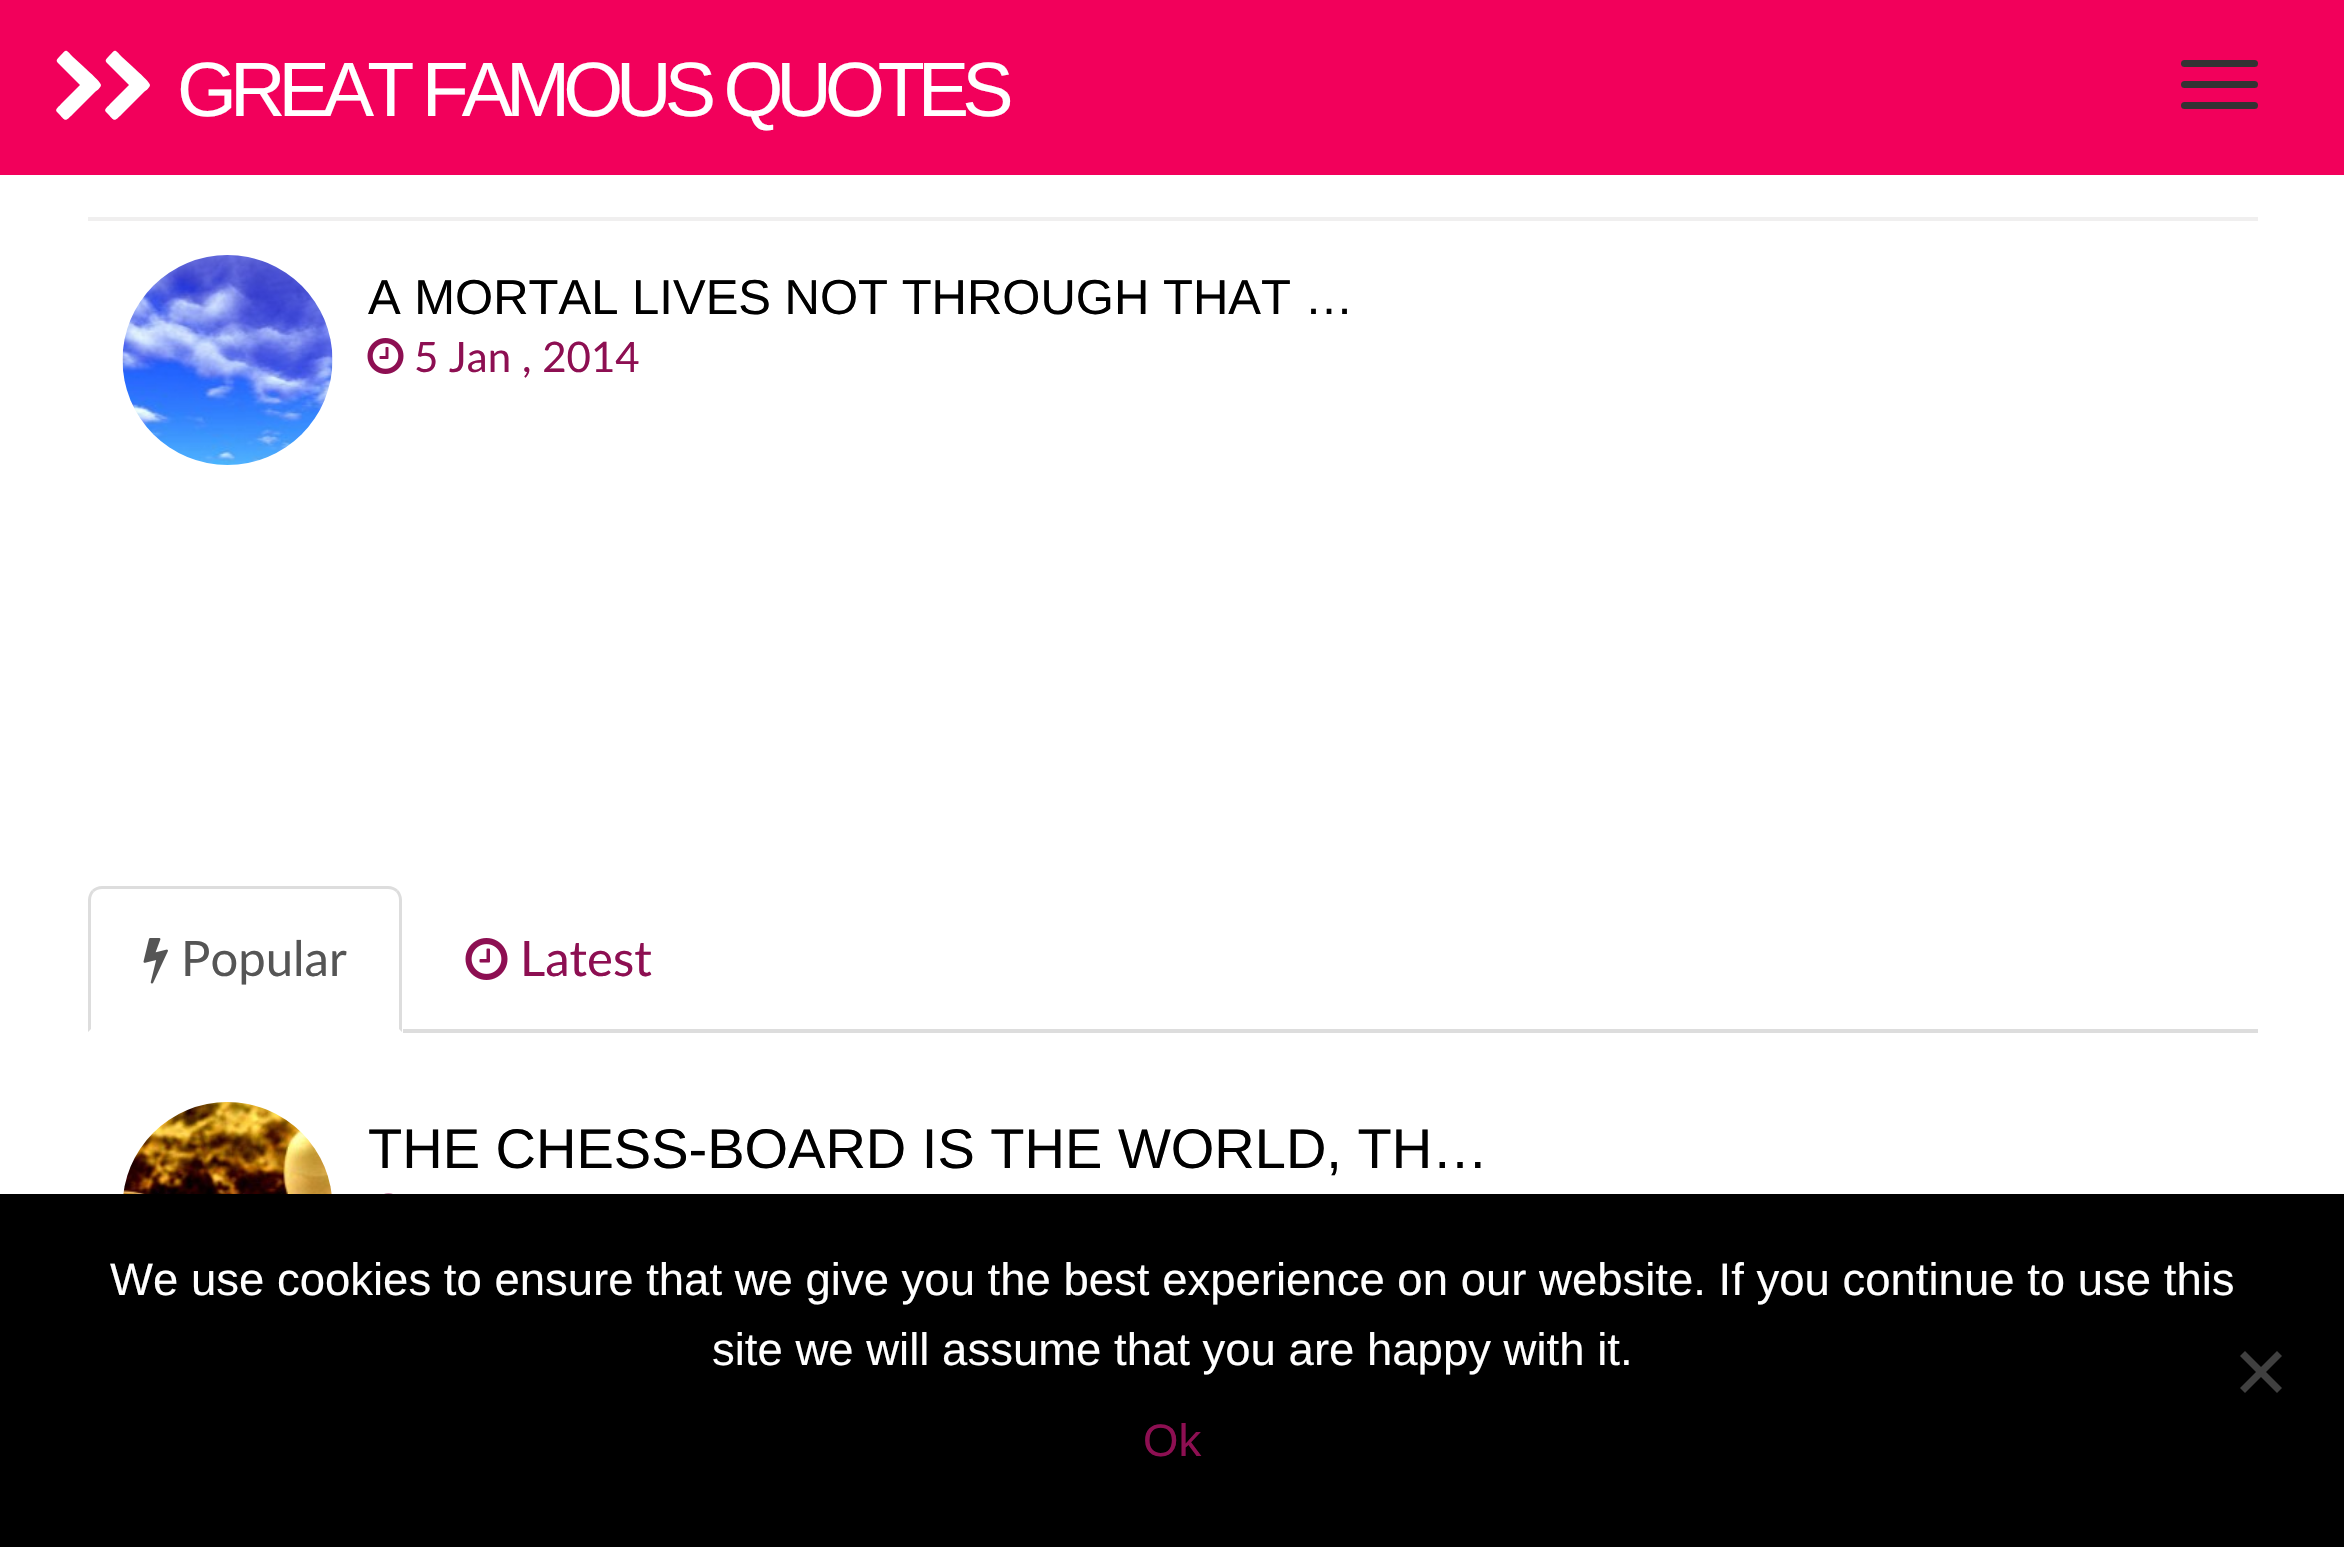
#include "include/core/SkBlurTypes.h"
#include "include/core/SkCanvas.h"
#include "include/core/SkData.h"
#include "include/core/SkFont.h"
#include "include/core/SkFontMgr.h"
#include "include/core/SkImage.h"
#include "include/core/SkMaskFilter.h"
#include "include/core/SkPaint.h"
#include "include/core/SkPathBuilder.h"
#include "include/core/SkTextBlob.h"
#include "include/effects/SkDashPathEffect.h"
#include "include/effects/SkGradientShader.h"
#include "include/utils/SkParsePath.h"

extern sk_sp<SkFontMgr> fontMgr;

void draw(SkCanvas* canvas) {
  SkPaint p;
  p.setAntiAlias(true);
  auto spacedText = [&](const char* s, float x, float y, const SkFont& font, const SkPaint& ink, float letter, float word) {
    std::vector<SkGlyphID> glyphs(font.countText(s, strlen(s), SkTextEncoding::kUTF8));
    std::vector<float> xs(glyphs.size());
    font.textToGlyphs(s, strlen(s), SkTextEncoding::kUTF8, glyphs);
    font.getXPos(glyphs, xs, x);
    float extra = 0;
    for (size_t i = 0; i < glyphs.size(); i++) {
      xs[i] += extra;
      extra += letter + word * (glyphs[i] == font.unicharToGlyph(' '));
    }
    canvas->drawTextBlob(SkTextBlob::MakeFromPosHGlyphs(glyphs, xs, y, font), 0, 0, ink);
  };
  canvas->clear(SK_ColorWHITE);
  p.setColor(SkColorSetRGB(242, 0, 91));
  canvas->drawRect(SkRect::MakeLTRB(0, 0, 2344, 175), p);
  p.setColor(SK_ColorWHITE);
  canvas->drawPath(SkPathBuilder().moveTo(57, 112).cubicTo(54, 109, 60, 106, 61, 104).lineTo(80, 85).lineTo(61, 66).cubicTo(56, 61, 55, 61, 60, 56).cubicTo(67, 49, 65, 49, 73, 57).lineTo(84, 67).cubicTo(87, 70, 101, 82, 101, 85).cubicTo(101, 88, 95, 92, 95, 92).lineTo(73, 114).cubicTo(64, 123, 66, 121, 57, 112).close().detach(), p);
  canvas->drawPath(SkPathBuilder().moveTo(106, 112).cubicTo(103, 109, 109, 106, 110, 104).lineTo(129, 85).lineTo(110, 66).cubicTo(105, 61, 104, 61, 109, 56).cubicTo(116, 49, 114, 49, 122, 57).lineTo(133, 67).cubicTo(136, 70, 150, 82, 150, 85).cubicTo(150, 88, 144, 92, 144, 92).lineTo(122, 114).cubicTo(113, 123, 115, 121, 106, 112).close().detach(), p);
  p.setColor(SkColorSetRGB(51, 51, 51));
  canvas->drawRoundRect(SkRect::MakeLTRB(2181, 60, 2258, 67), 3.5f, 3.5f, p);
  canvas->drawRoundRect(SkRect::MakeLTRB(2181, 81, 2258, 88), 3.5f, 3.5f, p);
  canvas->drawRoundRect(SkRect::MakeLTRB(2181, 102, 2258, 109), 3.5f, 3.5f, p);
  p.setColor(SkColorSetRGB(240, 239, 239));
  canvas->drawRect(SkRect::MakeLTRB(88, 217, 2258, 221), p);
  canvas->drawImageRect(SkImages::DeferredFromEncodedData(SkData::MakeFromFileName("images/1.png")), SkRect::MakeLTRB(122, 255, 333, 465), SkSamplingOptions());
  canvas->drawImageRect(SkImages::DeferredFromEncodedData(SkData::MakeFromFileName("images/2.png")), SkRect::MakeLTRB(367, 338, 404, 374), SkSamplingOptions());
  p.setColor(SkColorSetRGB(221, 221, 221));
  canvas->drawRect(SkRect::MakeLTRB(403, 1029, 2258, 1033), p);
  canvas->drawPath(SkPathBuilder().moveTo(102, 886).cubicTo(98, 886, 94, 888, 92, 890).lineTo(94, 892).cubicTo(96, 890, 99, 889, 102, 889).lineTo(388, 889).cubicTo(391, 889, 394, 890, 396, 892).lineTo(398, 890).cubicTo(396, 888, 392, 886, 388, 886).close().detach(), p);
  canvas->drawPath(SkPathBuilder().moveTo(402, 1032).lineTo(402, 900).cubicTo(402, 896, 400, 892, 398, 890).lineTo(396, 892).cubicTo(398, 894, 399, 897, 399, 900).lineTo(399, 1029).close().detach(), p);
  canvas->drawPath(SkPathBuilder().moveTo(92, 890).cubicTo(90, 892, 88, 896, 88, 900).lineTo(88, 1032).lineTo(91, 1029).lineTo(91, 900).cubicTo(91, 897, 92, 894, 94, 892).close().detach(), p);
  canvas->drawImageRect(SkImages::DeferredFromEncodedData(SkData::MakeFromFileName("images/3.png")), SkRect::MakeLTRB(143, 938, 168, 984), SkSamplingOptions());
  canvas->drawImageRect(SkImages::DeferredFromEncodedData(SkData::MakeFromFileName("images/4.png")), SkRect::MakeLTRB(465, 938, 508, 980), SkSamplingOptions());
  canvas->drawImageRect(SkImages::DeferredFromEncodedData(SkData::MakeFromFileName("images/5.png")), SkRect::MakeLTRB(123, 1102, 332, 1194), SkSamplingOptions());
  canvas->drawImageRect(SkImages::DeferredFromEncodedData(SkData::MakeFromFileName("images/6.png")), SkRect::MakeLTRB(384, 1193, 393, 1194), SkSamplingOptions());
  p.setColor(SK_ColorBLACK);
  canvas->drawRect(SkRect::MakeLTRB(0, 1194, 2344, 1547), p);
  p.setColor(SkColorSetRGB(64, 64, 64));
  canvas->drawPath(SkPathBuilder().moveTo(2277, 1351).lineTo(2282, 1356).lineTo(2245, 1393).lineTo(2240, 1388).close().detach(), p);
  canvas->drawPath(SkPathBuilder().moveTo(2240, 1356).lineTo(2245, 1351).lineTo(2282, 1388).lineTo(2277, 1393).close().detach(), p);
  SkFont font1(fontMgr->matchFamilyStyle("Liberation Sans", SkFontStyle::Normal()), 77);
  font1.setSubpixel(true);
  p.setColor(SK_ColorWHITE);
  spacedText("GREAT FAMOUS QUOTES", 177, 116, font1, p, -7, 0);
  SkFont font2(fontMgr->matchFamilyStyle("Liberation Sans", SkFontStyle::Normal()), 49);
  font2.setSubpixel(true);
  p.setColor(SK_ColorBLACK);
  canvas->drawString("A MORTAL LIVES NOT THROUGH THAT …", 368, 314, font2, p);
  SkFont font3(fontMgr->matchFamilyStyle("Lato", SkFontStyle::Normal()), 42);
  font3.setSubpixel(true);
  p.setColor(SkColorSetRGB(141, 15, 82));
  canvas->drawString("5 Jan , 2014", 414, 372, font3, p);
  SkFont font4(fontMgr->matchFamilyStyle("Lato", SkFontStyle::Normal()), 49);
  font4.setSubpixel(true);
  p.setColor(SkColorSetRGB(85, 85, 85));
  canvas->drawString("Popular", 181, 976, font4, p);
  p.setColor(SkColorSetRGB(141, 15, 82));
  canvas->drawString("Latest", 520, 976, font4, p);
  SkFont font5(fontMgr->matchFamilyStyle("Liberation Sans", SkFontStyle::Normal()), 56);
  font5.setSubpixel(true);
  p.setColor(SK_ColorBLACK);
  canvas->drawString("THE CHESS-BOARD IS THE WORLD, TH…", 368, 1168, font5, p);
  SkFont font6(fontMgr->matchFamilyStyle("Liberation Sans", SkFontStyle::Normal()), 45.5f);
  font6.setSubpixel(true);
  p.setColor(SK_ColorWHITE);
  canvas->drawString("We use cookies to ensure that we give you the best experience on our website. If you continue to use this", 110, 1295, font6, p);
  canvas->drawString("site we will assume that you are happy with it.", 712, 1365, font6, p);
  p.setColor(SkColorSetRGB(141, 15, 82));
  canvas->drawString("Ok", 1143, 1456, font6, p);
}
